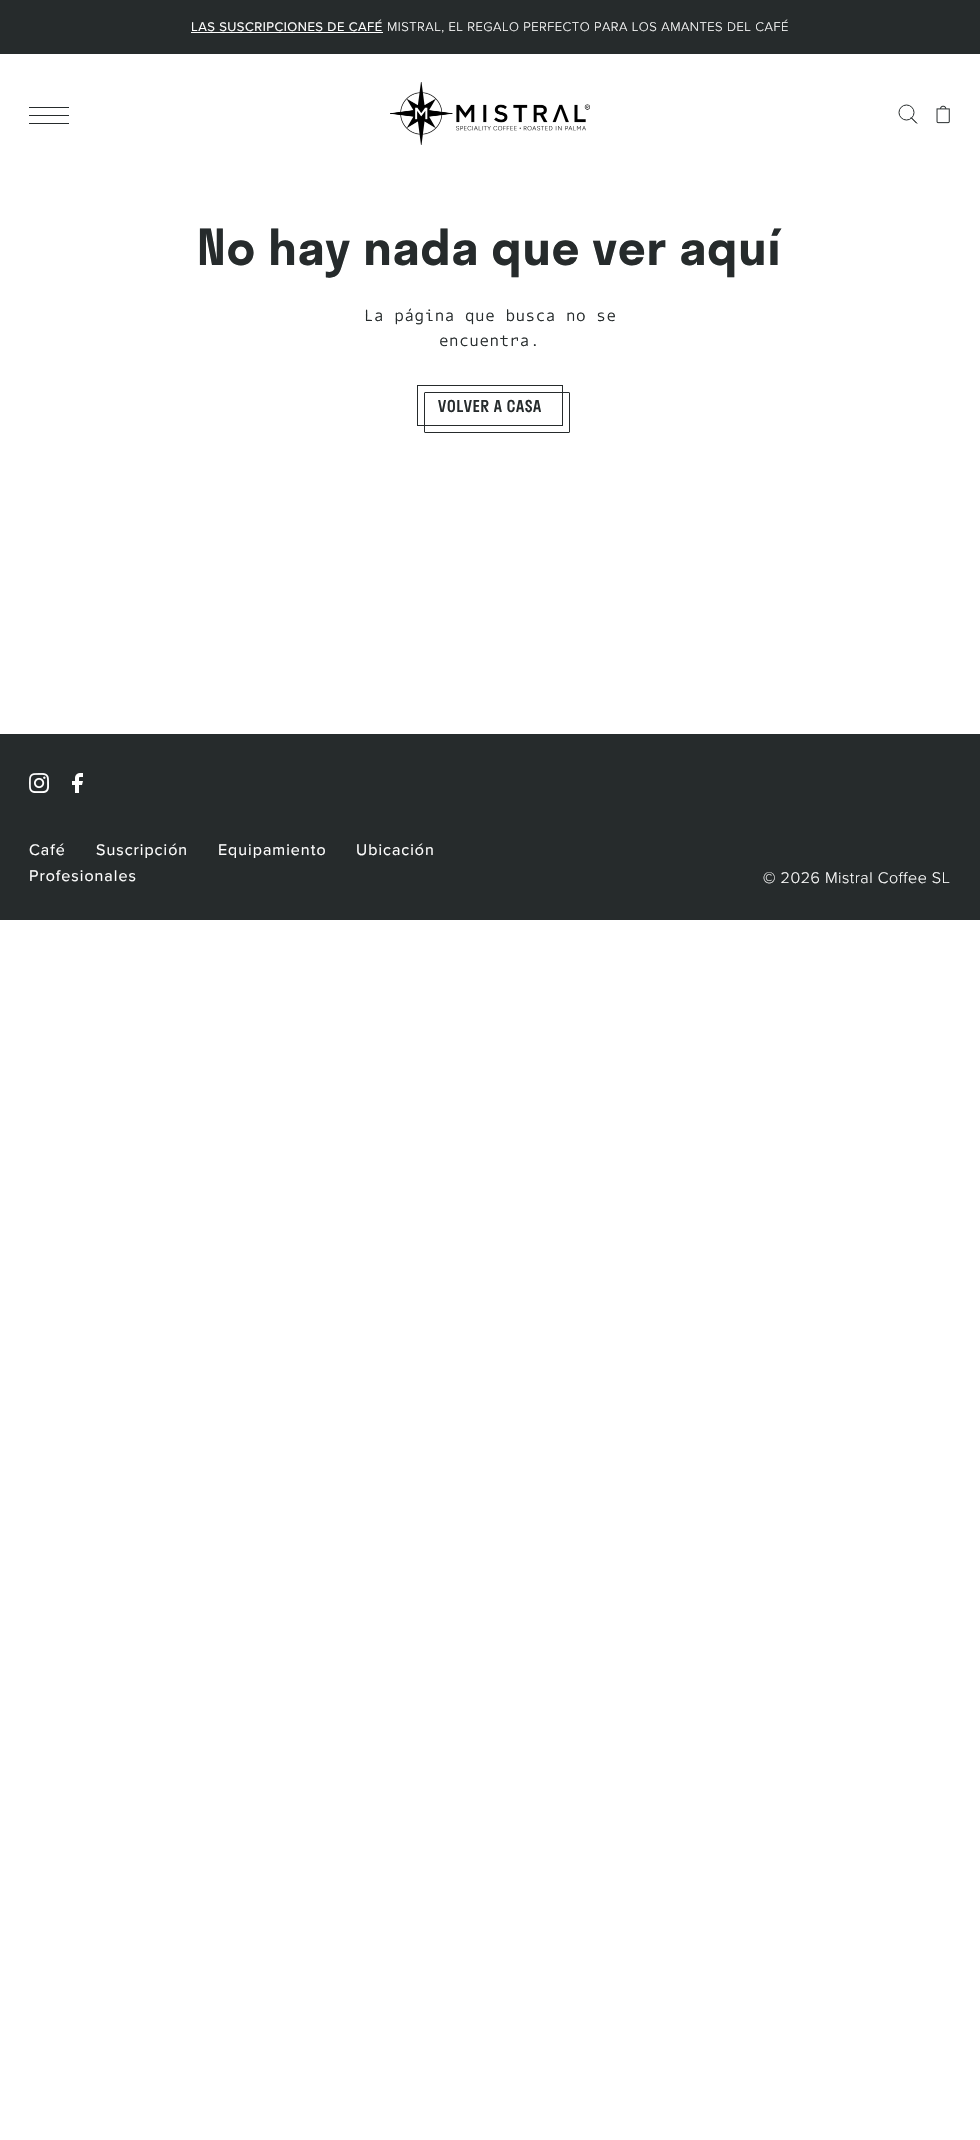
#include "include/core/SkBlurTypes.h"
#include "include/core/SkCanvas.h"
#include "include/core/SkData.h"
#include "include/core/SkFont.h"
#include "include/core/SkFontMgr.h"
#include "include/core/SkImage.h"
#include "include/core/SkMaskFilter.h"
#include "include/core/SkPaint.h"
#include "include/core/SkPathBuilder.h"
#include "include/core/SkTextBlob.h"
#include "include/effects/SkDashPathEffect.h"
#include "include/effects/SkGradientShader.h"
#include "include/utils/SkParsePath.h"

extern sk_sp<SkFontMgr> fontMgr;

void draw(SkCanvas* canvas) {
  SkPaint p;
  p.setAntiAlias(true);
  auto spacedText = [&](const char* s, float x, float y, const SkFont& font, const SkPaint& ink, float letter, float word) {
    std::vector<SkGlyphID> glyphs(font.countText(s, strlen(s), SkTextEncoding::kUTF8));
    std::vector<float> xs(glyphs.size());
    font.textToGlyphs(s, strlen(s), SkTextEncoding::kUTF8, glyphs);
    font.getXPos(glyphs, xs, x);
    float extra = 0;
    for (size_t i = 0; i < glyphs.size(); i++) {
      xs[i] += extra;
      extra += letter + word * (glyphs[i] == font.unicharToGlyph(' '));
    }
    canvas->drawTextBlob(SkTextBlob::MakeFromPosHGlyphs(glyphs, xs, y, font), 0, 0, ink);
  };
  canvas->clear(SK_ColorWHITE);
  p.setColor(SkColorSetRGB(38, 43, 44));
  canvas->drawRect(SkRect::MakeLTRB(0, 0, 980, 54), p);
  p.setColor(SK_ColorWHITE);
  canvas->drawRect(SkRect::MakeLTRB(191, 32, 383, 33), p);
  p.setColor(SkColorSetRGB(38, 43, 44));
  canvas->drawRect(SkRect::MakeLTRB(29, 107, 69, 108), p);
  canvas->drawRect(SkRect::MakeLTRB(29, 115, 69, 116), p);
  canvas->drawRect(SkRect::MakeLTRB(29, 123, 69, 124), p);
  canvas->drawImageRect(SkImages::DeferredFromEncodedData(SkData::MakeFromFileName("images/1.png")), SkRect::MakeLTRB(390, 82, 590, 145), SkSamplingOptions());
  p.setStyle(SkPaint::kStroke_Style);
  p.setStrokeWidth(1);
  canvas->drawCircle(906.5f, 112.5f, 7.5f, p);
  p.setStrokeCap(SkPaint::kSquare_Cap);
  canvas->drawPath(SkPathBuilder().moveTo(911.5f, 118).lineTo(916.5f, 123).close().detach(), p);
  canvas->drawImageRect(SkImages::DeferredFromEncodedData(SkData::MakeFromFileName("images/2.png")), SkRect::MakeLTRB(936, 105, 950, 124), SkSamplingOptions());
  p.setStrokeCap(SkPaint::kButt_Cap);
  canvas->drawRoundRect(SkRect::MakeLTRB(424.5f, 392.5f, 569.5f, 432.5f), 0.5f, 0.5f, p);
  canvas->drawRect(SkRect::MakeLTRB(417.5f, 385.5f, 562.5f, 425.5f), p);
  p.setStyle(SkPaint::kFill_Style);
  canvas->drawRect(SkRect::MakeLTRB(0, 734, 980, 920), p);
  canvas->drawImageRect(SkImages::DeferredFromEncodedData(SkData::MakeFromFileName("images/3.png")), SkRect::MakeLTRB(29, 773, 49, 793), SkSamplingOptions());
  canvas->drawImageRect(SkImages::DeferredFromEncodedData(SkData::MakeFromFileName("images/4.png")), SkRect::MakeLTRB(72, 773, 83, 793), SkSamplingOptions());
  SkFont font1(fontMgr->matchFamilyStyle("Proxima Nova", SkFontStyle::Normal()), 13);
  font1.setSubpixel(true);
  p.setColor(SK_ColorWHITE);
  spacedText("LAS SUSCRIPCIONES DE CAFÉ", 191, 31, font1, p, 0.5f, 0);
  SkFont font2(fontMgr->matchFamilyStyle("Proxima Nova", SkFontStyle(300, SkFontStyle::kNormal_Width, SkFontStyle::kUpright_Slant)), 13);
  font2.setSubpixel(true);
  spacedText("MISTRAL, EL REGALO PERFECTO PARA LOS AMANTES DEL CAFÉ", 387, 31, font2, p, 0.5f, 0);
  SkFont font3(fontMgr->matchFamilyStyle("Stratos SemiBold", SkFontStyle(600, SkFontStyle::kNormal_Width, SkFontStyle::kUpright_Slant)), 48.75f);
  font3.setSubpixel(true);
  p.setColor(SkColorSetRGB(38, 43, 44));
  spacedText("No hay nada que ver aquí", 197, 265, font3, p, 1, 0);
  SkFont font4(fontMgr->matchFamilyStyle("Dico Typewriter", SkFontStyle::Normal()), 16);
  font4.setSubpixel(true);
  spacedText("La página que busca no se", 364, 321, font4, p, 0.5f, 0);
  spacedText("encuentra.", 439, 346, font4, p, 0.5f, 0);
  SkFont font5(fontMgr->matchFamilyStyle("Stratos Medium", SkFontStyle(500, SkFontStyle::kNormal_Width, SkFontStyle::kUpright_Slant)), 16);
  font5.setSubpixel(true);
  spacedText("VOLVER A CASA", 438, 412, font5, p, 0.5f, 0);
  SkFont font6(fontMgr->matchFamilyStyle("Proxima Nova", SkFontStyle::Normal()), 16);
  font6.setSubpixel(true);
  p.setColor(SK_ColorWHITE);
  spacedText("Café", 29, 855, font6, p, 1, 0);
  spacedText("Suscripción", 96, 855, font6, p, 1, 0);
  spacedText("Equipamiento", 218, 855, font6, p, 1, 0);
  spacedText("Ubicación", 356, 855, font6, p, 1, 0);
  spacedText("Profesionales", 29, 881, font6, p, 1, 0);
  SkFont font7(fontMgr->matchFamilyStyle("Proxima Nova", SkFontStyle(300, SkFontStyle::kNormal_Width, SkFontStyle::kUpright_Slant)), 16);
  font7.setSubpixel(true);
  spacedText("© 2026 Mistral Coffee SL", 763, 883, font7, p, 0.5f, 0);
}
